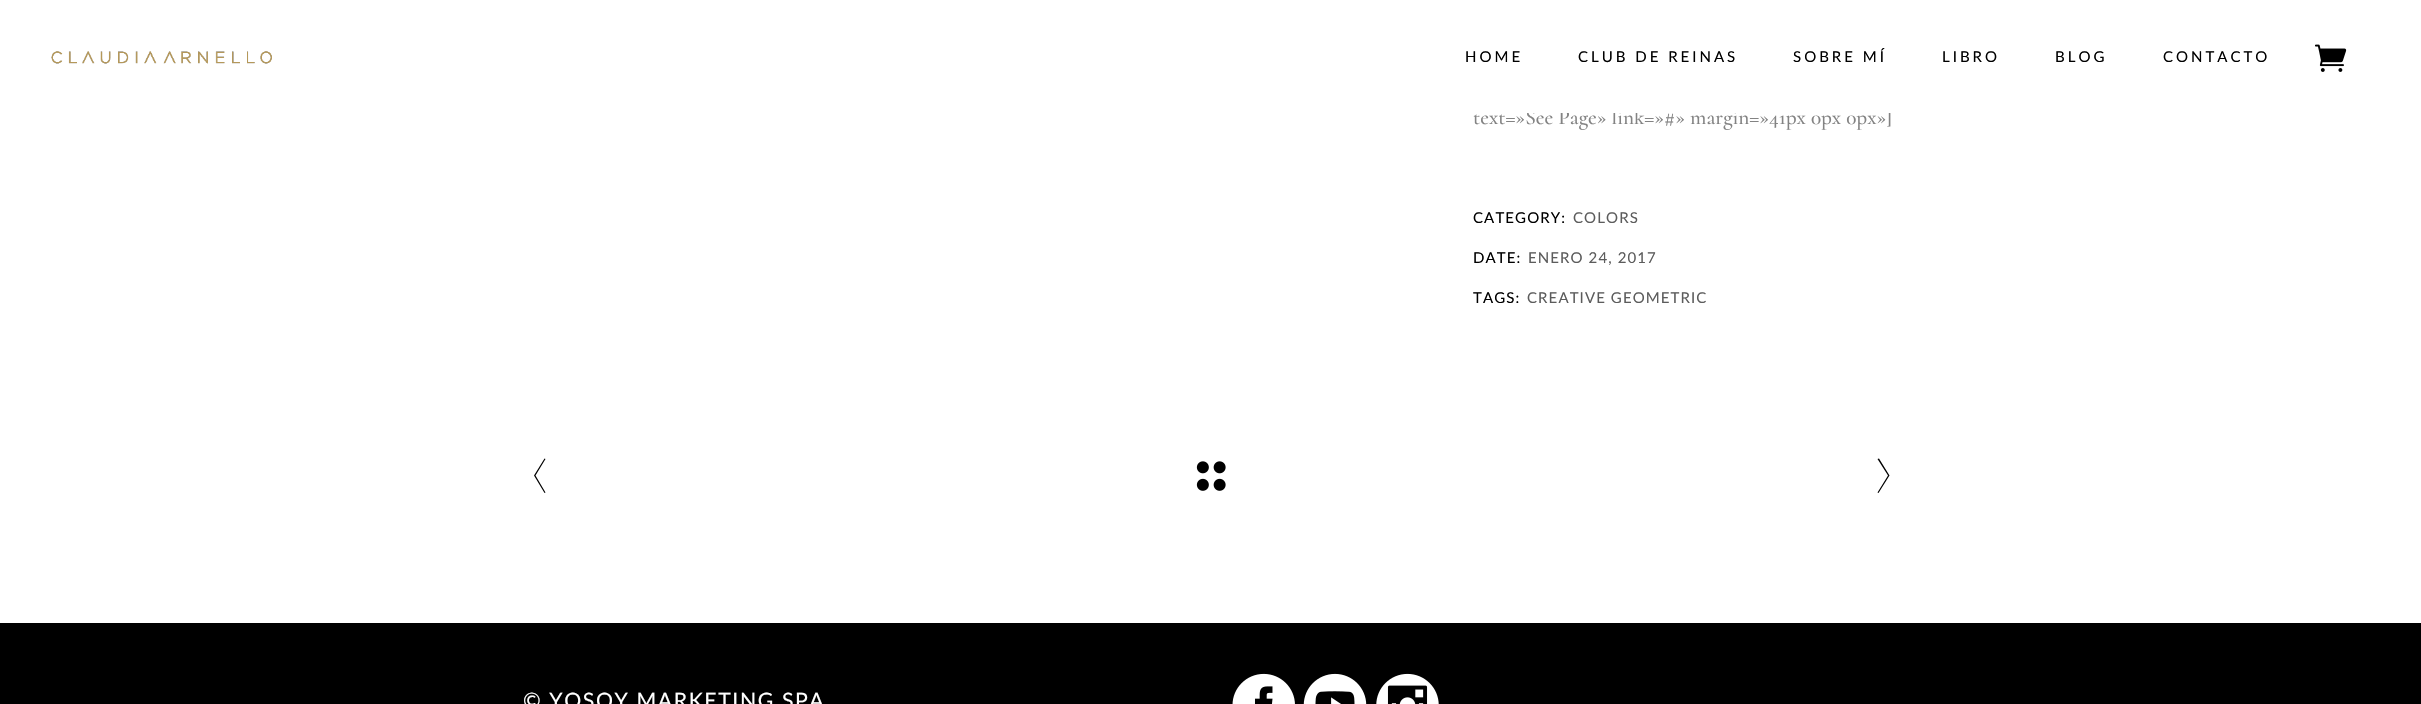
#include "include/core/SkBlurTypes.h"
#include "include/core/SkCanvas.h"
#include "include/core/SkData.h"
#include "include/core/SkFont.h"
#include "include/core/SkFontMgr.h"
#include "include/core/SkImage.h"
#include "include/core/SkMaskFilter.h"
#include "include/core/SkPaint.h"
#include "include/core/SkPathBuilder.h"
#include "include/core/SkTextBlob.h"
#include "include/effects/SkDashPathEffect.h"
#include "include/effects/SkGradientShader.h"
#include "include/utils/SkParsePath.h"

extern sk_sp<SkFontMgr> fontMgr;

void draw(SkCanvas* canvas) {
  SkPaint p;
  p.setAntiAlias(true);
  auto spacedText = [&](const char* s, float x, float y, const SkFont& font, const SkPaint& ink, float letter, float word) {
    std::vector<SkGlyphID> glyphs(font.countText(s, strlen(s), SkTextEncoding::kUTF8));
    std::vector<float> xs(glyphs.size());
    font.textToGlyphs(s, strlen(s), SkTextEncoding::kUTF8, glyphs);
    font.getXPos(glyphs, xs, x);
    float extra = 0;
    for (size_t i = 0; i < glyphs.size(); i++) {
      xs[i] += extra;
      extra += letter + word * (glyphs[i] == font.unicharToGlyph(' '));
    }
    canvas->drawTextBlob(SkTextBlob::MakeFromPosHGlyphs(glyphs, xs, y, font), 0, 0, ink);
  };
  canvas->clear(SK_ColorWHITE);
  canvas->drawImageRect(SkImages::DeferredFromEncodedData(SkData::MakeFromFileName("images/1.png")), SkRect::MakeLTRB(51, 51, 272, 64), SkSamplingOptions());
  canvas->drawImageRect(SkImages::DeferredFromEncodedData(SkData::MakeFromFileName("images/2.png")), SkRect::MakeLTRB(2315, 44, 2347, 72), SkSamplingOptions());
  p.setColor(SkColorSetRGB(1, 1, 1));
  canvas->drawPath(SkPathBuilder().moveTo(544.5f, 493).lineTo(545.5f, 492.5f).lineTo(535.5f, 475.5f).lineTo(545.5f, 459).lineTo(544.5f, 458.5f).lineTo(534, 475.5f).close().detach(), p);
  canvas->drawImageRect(SkImages::DeferredFromEncodedData(SkData::MakeFromFileName("images/3.png")), SkRect::MakeLTRB(1196, 461, 1226, 474), SkSamplingOptions());
  canvas->drawImageRect(SkImages::DeferredFromEncodedData(SkData::MakeFromFileName("images/4.png")), SkRect::MakeLTRB(1196, 478, 1226, 491), SkSamplingOptions());
  canvas->drawPath(SkPathBuilder().moveTo(1878.5f, 493).lineTo(1877.5f, 492.5f).lineTo(1888, 475.5f).lineTo(1877.5f, 459).lineTo(1879, 458.5f).lineTo(1889.5f, 475.5f).close().detach(), p);
  p.setColor(SK_ColorBLACK);
  canvas->drawRect(SkRect::MakeLTRB(0, 623, 2421, 704), p);
  canvas->drawImageRect(SkImages::DeferredFromEncodedData(SkData::MakeFromFileName("images/5.png")), SkRect::MakeLTRB(1232, 673, 1295, 704), SkSamplingOptions());
  canvas->drawImageRect(SkImages::DeferredFromEncodedData(SkData::MakeFromFileName("images/6.png")), SkRect::MakeLTRB(1303, 673, 1367, 704), SkSamplingOptions());
  canvas->drawImageRect(SkImages::DeferredFromEncodedData(SkData::MakeFromFileName("images/7.png")), SkRect::MakeLTRB(1376, 673, 1439, 704), SkSamplingOptions());
  SkFont font1(fontMgr->matchFamilyStyle("Lato", SkFontStyle::Normal()), 15);
  font1.setSubpixel(true);
  spacedText("HOME", 1465, 62, font1, p, 3, 0);
  spacedText("CLUB DE REINAS", 1578, 62, font1, p, 3, 0);
  spacedText("SOBRE MÍ", 1793, 62, font1, p, 3, 0);
  spacedText("LIBRO", 1942, 62, font1, p, 3, 0);
  spacedText("BLOG", 2055, 62, font1, p, 3, 0);
  spacedText("CONTACTO", 2163, 62, font1, p, 3, 0);
  SkFont font2(fontMgr->matchFamilyStyle("Cormorant", SkFontStyle(500, SkFontStyle::kNormal_Width, SkFontStyle::kUpright_Slant)), 21.25f);
  font2.setSubpixel(true);
  p.setColor(SkColorSetRGB(131, 131, 131));
  canvas->drawString("text=»See Page» link=»#» margin=»41px 0px 0px»]", 1473, 124, font2, p);
  p.setColor(SK_ColorWHITE);
  canvas->drawRect(SkRect::MakeLTRB(1527, 108, 1891, 113), p);
  p.setColor(SK_ColorBLACK);
  spacedText("CATEGORY:", 1473, 223, font1, p, 1.1f, 0);
  p.setColor(SkColorSetRGB(92, 92, 92));
  spacedText("COLORS", 1573, 223, font1, p, 1.1f, 0);
  p.setColor(SK_ColorBLACK);
  spacedText("DATE:", 1473, 263, font1, p, 1.1f, 0);
  p.setColor(SkColorSetRGB(92, 92, 92));
  spacedText("ENERO 24, 2017", 1528, 263, font1, p, 1.1f, 0);
  p.setColor(SK_ColorBLACK);
  spacedText("TAGS:", 1473, 303, font1, p, 1.1f, 0);
  p.setColor(SkColorSetRGB(92, 92, 92));
  spacedText("CREATIVE GEOMETRIC", 1527, 303, font1, p, 1.1f, 0);
  SkFont font3(fontMgr->matchFamilyStyle("Lato", SkFontStyle::Normal()), 21.25f);
  font3.setSubpixel(true);
  p.setColor(SK_ColorWHITE);
  spacedText("© YOSOY MARKETING SPA", 523, 708, font3, p, 1.6f, 0);
}
